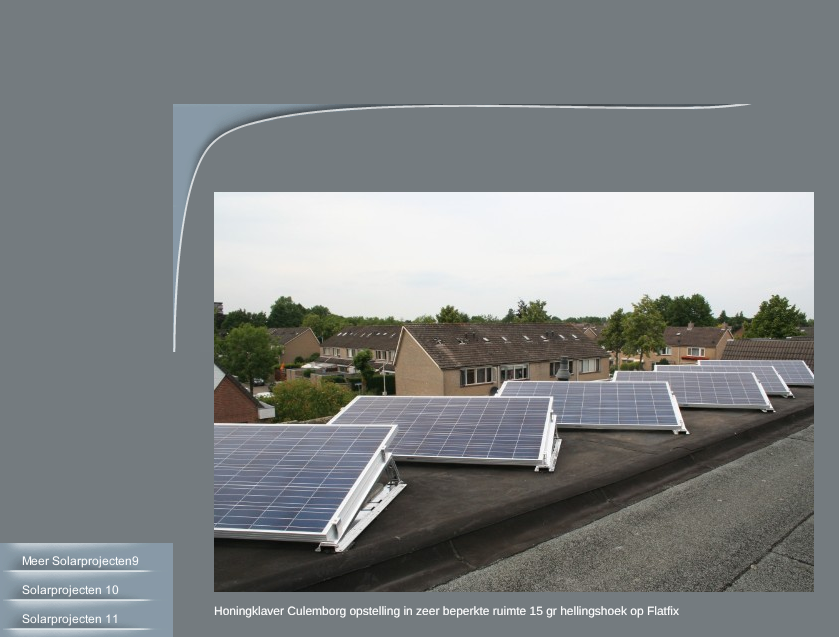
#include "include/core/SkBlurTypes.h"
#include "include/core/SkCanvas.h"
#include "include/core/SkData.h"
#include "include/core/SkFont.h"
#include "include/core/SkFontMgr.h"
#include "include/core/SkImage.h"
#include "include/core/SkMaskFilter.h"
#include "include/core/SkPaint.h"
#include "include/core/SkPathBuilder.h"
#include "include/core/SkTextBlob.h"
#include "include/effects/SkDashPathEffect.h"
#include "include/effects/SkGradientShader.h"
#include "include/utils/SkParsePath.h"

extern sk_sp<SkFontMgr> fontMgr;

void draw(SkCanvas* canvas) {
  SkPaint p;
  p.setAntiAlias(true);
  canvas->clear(SkColorSetRGB(116, 123, 127));
  canvas->drawImageRect(SkImages::DeferredFromEncodedData(SkData::MakeFromFileName("images/1.png")), SkRect::MakeLTRB(0, 543, 173, 572), SkSamplingOptions());
  canvas->drawImageRect(SkImages::DeferredFromEncodedData(SkData::MakeFromFileName("images/2.png")), SkRect::MakeLTRB(0, 572, 173, 601), SkSamplingOptions());
  canvas->drawImageRect(SkImages::DeferredFromEncodedData(SkData::MakeFromFileName("images/3.png")), SkRect::MakeLTRB(0, 601, 173, 630), SkSamplingOptions());
  canvas->drawImageRect(SkImages::DeferredFromEncodedData(SkData::MakeFromFileName("images/4.png")), SkRect::MakeLTRB(0, 630, 173, 637), SkSamplingOptions());
  canvas->drawImageRect(SkImages::DeferredFromEncodedData(SkData::MakeFromFileName("images/5.png")), SkRect::MakeLTRB(173, 104, 214, 352), SkSamplingOptions());
  canvas->drawImageRect(SkImages::DeferredFromEncodedData(SkData::MakeFromFileName("images/6.png")), SkRect::MakeLTRB(214, 104, 752, 144), SkSamplingOptions());
  canvas->drawImageRect(SkImages::DeferredFromEncodedData(SkData::MakeFromFileName("images/7.png")), SkRect::MakeLTRB(214, 192, 814, 592), SkSamplingOptions());
  SkFont font1(fontMgr->matchFamilyStyle("Liberation Sans", SkFontStyle::Normal()), 12);
  font1.setSubpixel(true);
  p.setColor(SK_ColorWHITE);
  canvas->drawString("Honingklaver Culemborg opstelling in zeer beperkte ruimte 15 gr hellingshoek op Flatfix", 214, 615, font1, p);
}
